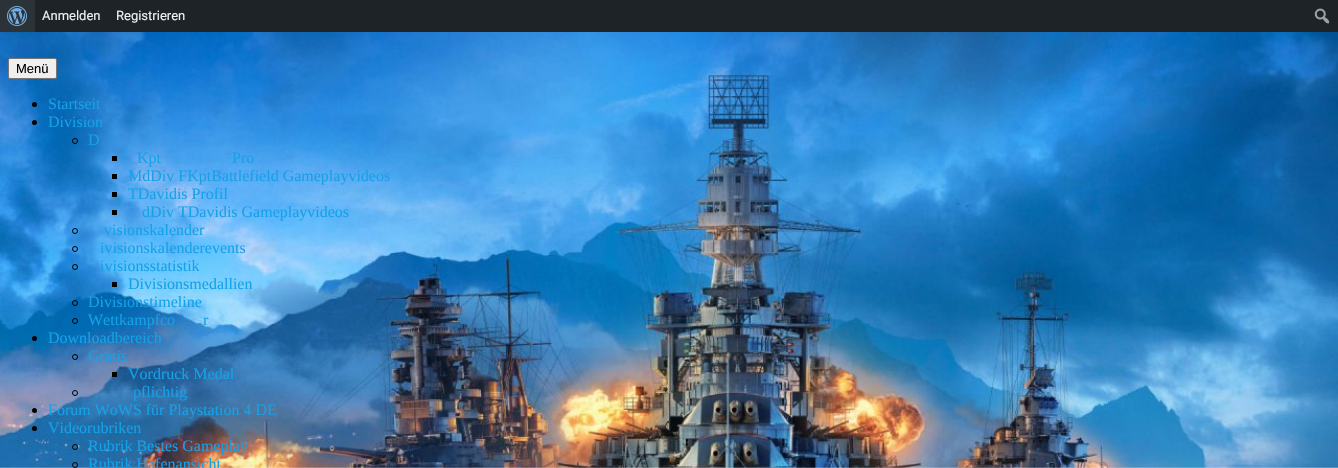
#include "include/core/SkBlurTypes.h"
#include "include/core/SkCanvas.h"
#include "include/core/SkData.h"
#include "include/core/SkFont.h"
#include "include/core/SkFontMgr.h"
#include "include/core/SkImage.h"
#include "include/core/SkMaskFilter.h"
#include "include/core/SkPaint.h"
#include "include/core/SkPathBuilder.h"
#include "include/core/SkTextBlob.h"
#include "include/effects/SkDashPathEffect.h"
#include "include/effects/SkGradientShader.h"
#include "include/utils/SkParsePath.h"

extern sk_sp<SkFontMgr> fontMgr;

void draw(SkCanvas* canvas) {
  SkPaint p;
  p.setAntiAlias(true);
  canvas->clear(SK_ColorWHITE);
  canvas->drawImageRect(SkImages::DeferredFromEncodedData(SkData::MakeFromFileName("images/1.png")), SkRect::MakeLTRB(0, 32, 1338, 468), SkSamplingOptions());
  p.setColor(SkColorSetRGB(29, 35, 39));
  canvas->drawRect(SkRect::MakeLTRB(35, 0, 1338, 32), p);
  p.setColor(SkColorSetRGB(44, 51, 56));
  canvas->drawRect(SkRect::MakeLTRB(0, 0, 35, 32), p);
  canvas->drawImageRect(SkImages::DeferredFromEncodedData(SkData::MakeFromFileName("images/2.png")), SkRect::MakeLTRB(7, 6, 27, 26), SkSamplingOptions());
  canvas->drawImageRect(SkImages::DeferredFromEncodedData(SkData::MakeFromFileName("images/3.png")), SkRect::MakeLTRB(1314, 8, 1330, 24), SkSamplingOptions());
  p.setColor(SkColorSetRGB(239, 239, 239));
  canvas->drawRoundRect(SkRect::MakeLTRB(8.5f, 58.5f, 56.5f, 78.5f), 1.5f, 1.5f, p);
  p.setStyle(SkPaint::kStroke_Style);
  p.setStrokeWidth(1);
  p.setColor(SkColorSetRGB(118, 118, 118));
  canvas->drawRoundRect(SkRect::MakeLTRB(8.5f, 58.5f, 56.5f, 78.5f), 1.5f, 1.5f, p);
  p.setStyle(SkPaint::kFill_Style);
  p.setColor(SK_ColorBLACK);
  canvas->drawCircle(34.5f, 104.5f, 2.5f, p);
  canvas->drawCircle(34.5f, 122.5f, 2.5f, p);
  p.setStyle(SkPaint::kStroke_Style);
  canvas->drawCircle(75, 141, 2.5f, p);
  p.setStyle(SkPaint::kFill_Style);
  canvas->drawRect(SkRect::MakeLTRB(112, 156, 117, 161), p);
  canvas->drawRect(SkRect::MakeLTRB(112, 174, 117, 179), p);
  canvas->drawRect(SkRect::MakeLTRB(112, 192, 117, 197), p);
  canvas->drawRect(SkRect::MakeLTRB(112, 210, 117, 215), p);
  p.setStyle(SkPaint::kStroke_Style);
  canvas->drawCircle(75, 231, 2.5f, p);
  canvas->drawCircle(75, 249, 2.5f, p);
  canvas->drawCircle(75, 267, 2.5f, p);
  p.setStyle(SkPaint::kFill_Style);
  canvas->drawRect(SkRect::MakeLTRB(112, 282, 117, 287), p);
  p.setStyle(SkPaint::kStroke_Style);
  canvas->drawCircle(75, 303, 2.5f, p);
  canvas->drawCircle(75, 321, 2.5f, p);
  p.setStyle(SkPaint::kFill_Style);
  canvas->drawCircle(34.5f, 338.5f, 2.5f, p);
  p.setStyle(SkPaint::kStroke_Style);
  canvas->drawCircle(75, 357, 2.5f, p);
  p.setStyle(SkPaint::kFill_Style);
  canvas->drawRect(SkRect::MakeLTRB(112, 372, 117, 377), p);
  p.setStyle(SkPaint::kStroke_Style);
  canvas->drawCircle(75, 393, 2.5f, p);
  p.setStyle(SkPaint::kFill_Style);
  canvas->drawCircle(34.5f, 410.5f, 2.5f, p);
  canvas->drawCircle(34.5f, 428.5f, 2.5f, p);
  p.setStyle(SkPaint::kStroke_Style);
  canvas->drawCircle(75, 447, 2.5f, p);
  canvas->drawCircle(75, 465, 2.5f, p);
  SkFont font1(fontMgr->matchFamilyStyle("Roboto", SkFontStyle::Normal()), 13);
  font1.setSubpixel(true);
  p.setStyle(SkPaint::kFill_Style);
  p.setColor(SkColorSetRGB(240, 240, 241));
  canvas->drawString("Anmelden", 42, 20, font1, p);
  canvas->drawString("Registrieren", 116, 20, font1, p);
  SkFont font2(fontMgr->matchFamilyStyle("Liberation Sans", SkFontStyle::Normal()), 13);
  font2.setSubpixel(true);
  p.setColor(SK_ColorBLACK);
  canvas->drawString("Menü", 16, 73, font2, p);
  SkFont font3(fontMgr->matchFamilyStyle("Liberation Serif", SkFontStyle::Normal()), 16);
  font3.setSubpixel(true);
  p.setColor(SkColorSetRGB(22, 161, 231));
  canvas->drawString("Startseit", 48, 109, font3, p);
  canvas->drawString("Division", 48, 127, font3, p);
  canvas->drawString("D", 88, 145, font3, p);
  canvas->drawString("Kpt", 137, 163, font3, p);
  canvas->drawString("Pro", 232, 163, font3, p);
  canvas->drawString("MdDiv FKptBattlefield Gameplayvideos", 128, 181, font3, p);
  canvas->drawString("TDavidis Profil", 128, 199, font3, p);
  canvas->drawString("dDiv TDavidis Gameplayvideos", 142, 217, font3, p);
  canvas->drawString("visionskalender", 104, 235, font3, p);
  canvas->drawString("ivisionskalenderevents", 100, 253, font3, p);
  canvas->drawString("ivisionsstatistik", 100, 271, font3, p);
  canvas->drawString("Divisionsmedallien", 128, 289, font3, p);
  canvas->drawString("Divisionstimeline", 88, 307, font3, p);
  canvas->drawString("Wettkampfco", 88, 325, font3, p);
  canvas->drawString("r", 203, 325, font3, p);
  canvas->drawString("Downloadbereich", 48, 343, font3, p);
  canvas->drawString("Gratis", 88, 361, font3, p);
  canvas->drawString("Vordruck Medal", 128, 379, font3, p);
  canvas->drawString("pflichtig", 133, 397, font3, p);
  canvas->drawString("Forum WoWS für Playstation 4 DE", 48, 415, font3, p);
  canvas->drawString("Videorubriken", 48, 433, font3, p);
  canvas->drawString("Rubrik Bestes Gameplay", 88, 451, font3, p);
  canvas->drawString("Rubrik Hafenansicht", 88, 469, font3, p);
}
